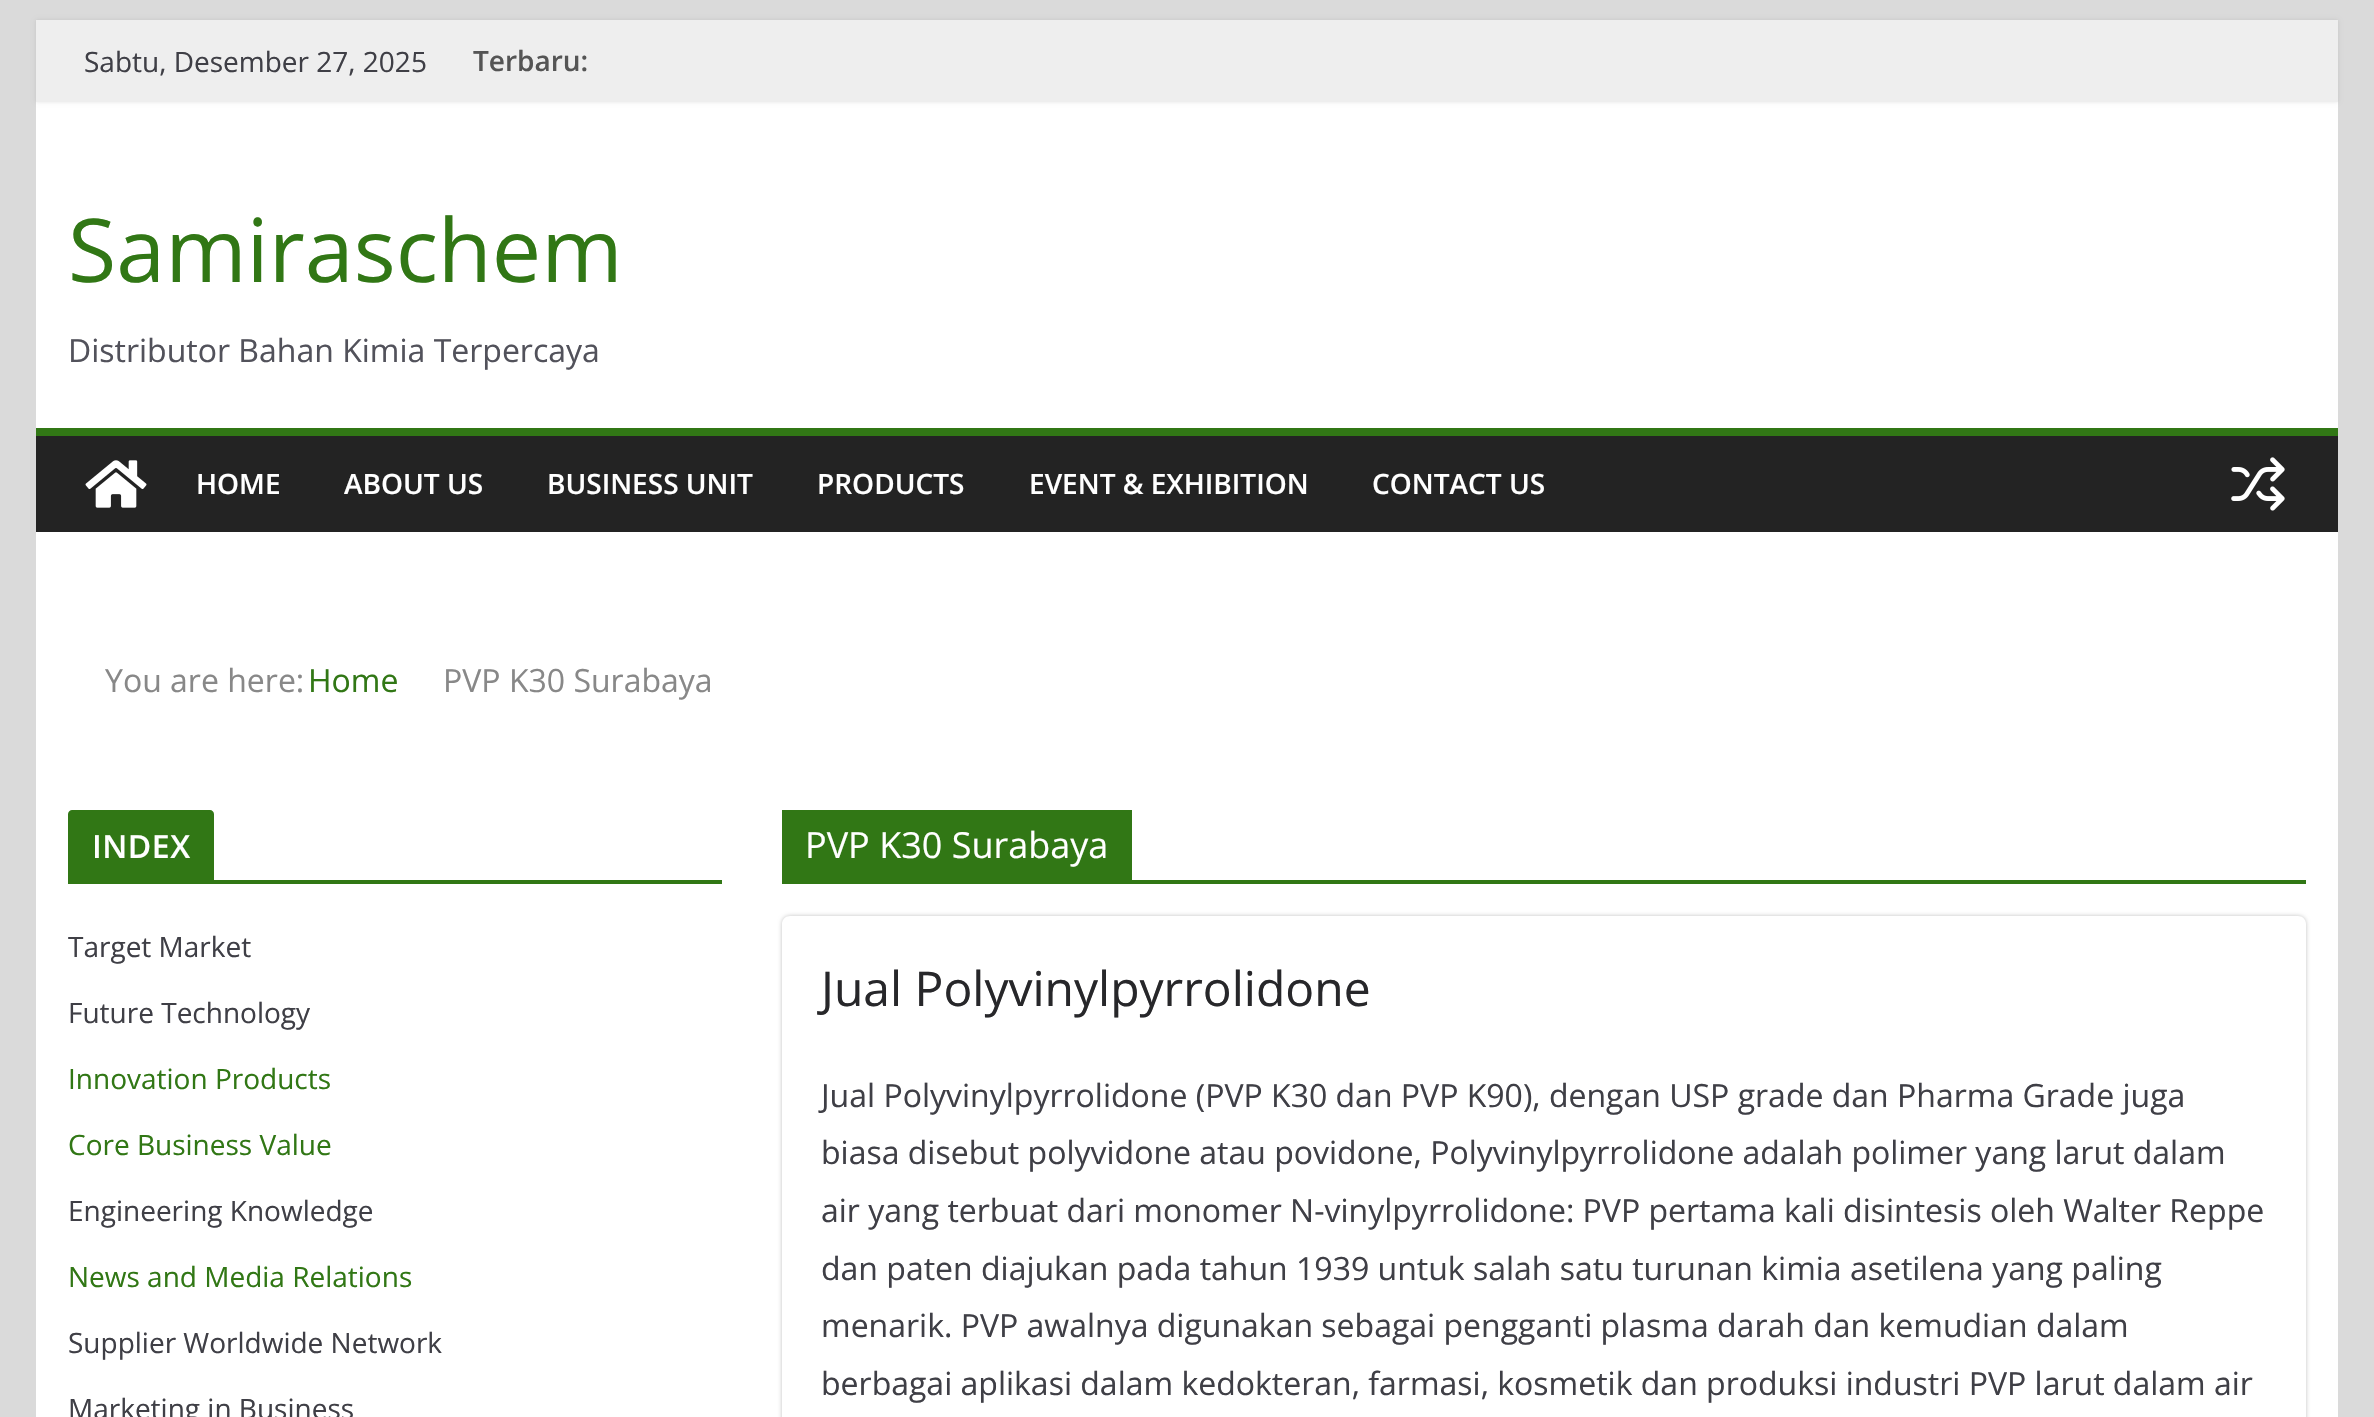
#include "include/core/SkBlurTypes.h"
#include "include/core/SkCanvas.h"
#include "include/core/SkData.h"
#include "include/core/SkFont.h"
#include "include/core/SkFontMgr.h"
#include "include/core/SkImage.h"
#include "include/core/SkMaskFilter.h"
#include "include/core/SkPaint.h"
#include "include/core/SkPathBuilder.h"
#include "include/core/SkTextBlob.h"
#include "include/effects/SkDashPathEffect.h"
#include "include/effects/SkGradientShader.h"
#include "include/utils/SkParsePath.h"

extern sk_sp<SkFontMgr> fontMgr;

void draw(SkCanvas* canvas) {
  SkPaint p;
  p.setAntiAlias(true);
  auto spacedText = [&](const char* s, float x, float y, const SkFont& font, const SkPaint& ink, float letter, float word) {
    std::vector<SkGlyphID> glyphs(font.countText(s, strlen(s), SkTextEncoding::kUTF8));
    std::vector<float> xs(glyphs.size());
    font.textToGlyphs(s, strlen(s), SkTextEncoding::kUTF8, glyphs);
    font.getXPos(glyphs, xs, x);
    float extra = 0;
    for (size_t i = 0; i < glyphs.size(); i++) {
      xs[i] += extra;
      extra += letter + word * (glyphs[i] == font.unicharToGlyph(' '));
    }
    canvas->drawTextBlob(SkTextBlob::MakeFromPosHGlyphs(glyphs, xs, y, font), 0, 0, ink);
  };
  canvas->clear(SkColorSetRGB(218, 218, 218));
  p.setColor(SK_ColorWHITE);
  canvas->drawRect(SkRect::MakeLTRB(36, 102, 2338, 428), p);
  p.setColor(SkColorSetARGB(26, 0, 0, 0));
  p.setMaskFilter(SkMaskFilter::MakeBlur(kNormal_SkBlurStyle, 2));
  canvas->drawRect(SkRect::MakeLTRB(36, 20, 2338, 102), p);
  p.setMaskFilter(nullptr);
  p.setColor(SkColorSetRGB(238, 238, 238));
  canvas->drawRect(SkRect::MakeLTRB(36, 20, 2338, 102), p);
  p.setColor(SkColorSetRGB(35, 35, 35));
  canvas->drawRect(SkRect::MakeLTRB(36, 436, 2338, 532), p);
  p.setColor(SkColorSetRGB(49, 119, 21));
  canvas->drawRect(SkRect::MakeLTRB(36, 428, 2338, 436), p);
  canvas->drawImageRect(SkImages::DeferredFromEncodedData(SkData::MakeFromFileName("images/1.png")), SkRect::MakeLTRB(85, 460, 147, 508), SkSamplingOptions());
  canvas->drawImageRect(SkImages::DeferredFromEncodedData(SkData::MakeFromFileName("images/2.png")), SkRect::MakeLTRB(2231, 457, 2285, 511), SkSamplingOptions());
  p.setColor(SK_ColorWHITE);
  canvas->drawRect(SkRect::MakeLTRB(36, 532, 2338, 1417), p);
  p.setColor(SkColorSetRGB(49, 119, 21));
  canvas->drawRect(SkRect::MakeLTRB(68, 880, 722, 884), p);
  canvas->drawPath(SkPathBuilder().moveTo(72, 810).lineTo(210, 810).cubicTo(212, 810, 214, 812, 214, 814).lineTo(214, 880).lineTo(68, 880).lineTo(68, 814).cubicTo(68, 812, 70, 810, 72, 810).close().detach(), p);
  canvas->drawRect(SkRect::MakeLTRB(782, 880, 2306, 884), p);
  canvas->drawRect(SkRect::MakeLTRB(782, 810, 1132, 880), p);
  canvas->save();
  canvas->clipPath(SkPathBuilder(SkPathFillType::kEvenOdd).moveTo(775, 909).lineTo(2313, 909).lineTo(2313, 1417).lineTo(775, 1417).close().moveTo(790, 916).lineTo(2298, 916).cubicTo(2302.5f, 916, 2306, 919.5f, 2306, 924).lineTo(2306, 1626).cubicTo(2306, 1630.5f, 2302.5f, 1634, 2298, 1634).lineTo(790, 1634).cubicTo(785.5f, 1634, 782, 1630.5f, 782, 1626).lineTo(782, 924).cubicTo(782, 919.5f, 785.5f, 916, 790, 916).close().detach(), true);
  p.setColor(SkColorSetARGB(61, 0, 0, 0));
  p.setMaskFilter(SkMaskFilter::MakeBlur(kNormal_SkBlurStyle, 2));
  canvas->drawRoundRect(SkRect::MakeLTRB(782, 916, 2306, 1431), 8, 8, p);
  p.setMaskFilter(nullptr);
  canvas->restore();
  SkFont font1(fontMgr->matchFamilyStyle("Open Sans", SkFontStyle::Normal()), 28);
  font1.setSubpixel(true);
  p.setColor(SkColorSetRGB(63, 63, 70));
  canvas->drawString("Sabtu, Desember 27, 2025", 84, 72, font1, p);
  SkFont font2(fontMgr->matchFamilyStyle("Open Sans", SkFontStyle(600, SkFontStyle::kNormal_Width, SkFontStyle::kUpright_Slant)), 28);
  font2.setSubpixel(true);
  p.setColor(SkColorSetRGB(85, 85, 85));
  canvas->drawString("Terbaru:", 473, 71, font2, p);
  SkFont font3(fontMgr->matchFamilyStyle("Open Sans", SkFontStyle::Normal()), 88);
  font3.setSubpixel(true);
  p.setColor(SkColorSetRGB(49, 119, 21));
  canvas->drawString("Samiraschem", 68, 282, font3, p);
  SkFont font4(fontMgr->matchFamilyStyle("Open Sans", SkFontStyle::Normal()), 32);
  font4.setSubpixel(true);
  p.setColor(SkColorSetRGB(82, 82, 91));
  canvas->drawString("Distributor Bahan Kimia Terpercaya", 68, 362, font4, p);
  p.setColor(SK_ColorWHITE);
  canvas->drawString("HOME", 196, 494, font2, p);
  canvas->drawString("ABOUT US", 344, 494, font2, p);
  canvas->drawString("BUSINESS UNIT", 547, 494, font2, p);
  canvas->drawString("PRODUCTS", 817, 494, font2, p);
  canvas->drawString("EVENT & EXHIBITION", 1029, 494, font2, p);
  canvas->drawString("CONTACT US", 1372, 494, font2, p);
  p.setColor(SkColorSetRGB(136, 136, 136));
  canvas->drawString("You are here:", 105, 692, font4, p);
  p.setColor(SkColorSetRGB(49, 119, 21));
  canvas->drawString("Home", 308, 692, font4, p);
  p.setColor(SkColorSetRGB(136, 136, 136));
  canvas->drawString("PVP K30 Surabaya", 443, 692, font4, p);
  SkFont font5(fontMgr->matchFamilyStyle("Open Sans", SkFontStyle(600, SkFontStyle::kNormal_Width, SkFontStyle::kUpright_Slant)), 32);
  font5.setSubpixel(true);
  p.setColor(SK_ColorWHITE);
  spacedText("INDEX", 92, 858, font5, p, 0.5f, 0);
  p.setColor(SkColorSetRGB(63, 63, 70));
  canvas->drawString("Target Market", 68, 957, font1, p);
  canvas->drawString("Future Technology", 68, 1023, font1, p);
  p.setColor(SkColorSetRGB(49, 119, 21));
  canvas->drawString("Innovation Products", 68, 1089, font1, p);
  canvas->drawString("Core Business Value", 68, 1155, font1, p);
  p.setColor(SkColorSetRGB(63, 63, 70));
  canvas->drawString("Engineering Knowledge", 68, 1221, font1, p);
  p.setColor(SkColorSetRGB(49, 119, 21));
  canvas->drawString("News and Media Relations", 68, 1287, font1, p);
  p.setColor(SkColorSetRGB(63, 63, 70));
  canvas->drawString("Supplier Worldwide Network", 68, 1353, font1, p);
  canvas->drawString("Marketing in Business", 68, 1419, font1, p);
  SkFont font6(fontMgr->matchFamilyStyle("Open Sans", SkFontStyle::Normal()), 36);
  font6.setSubpixel(true);
  p.setColor(SK_ColorWHITE);
  canvas->drawString("PVP K30 Surabaya", 805, 858, font6, p);
  SkFont font7(fontMgr->matchFamilyStyle("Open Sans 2", SkFontStyle::Normal()), 48);
  font7.setSubpixel(true);
  p.setColor(SkColorSetRGB(39, 39, 42));
  canvas->drawString("Jual Polyvinylpyrrolidone", 821, 1006, font7, p);
  p.setColor(SkColorSetRGB(63, 63, 70));
  canvas->drawString("Jual Polyvinylpyrrolidone (PVP K30 dan PVP K90), dengan USP grade dan Pharma Grade juga", 821, 1107, font4, p);
  canvas->drawString("biasa disebut polyvidone atau povidone, Polyvinylpyrrolidone adalah polimer yang larut dalam", 821, 1164, font4, p);
  canvas->drawString("air yang terbuat dari monomer N-vinylpyrrolidone: PVP pertama kali disintesis oleh Walter Reppe", 821, 1222, font4, p);
  canvas->drawString("dan paten diajukan pada tahun 1939 untuk salah satu turunan kimia asetilena yang paling", 821, 1280, font4, p);
  canvas->drawString("menarik. PVP awalnya digunakan sebagai pengganti plasma darah dan kemudian dalam", 821, 1337, font4, p);
  canvas->drawString("berbagai aplikasi dalam kedokteran, farmasi, kosmetik dan produksi industri PVP larut dalam air", 821, 1395, font4, p);
}
